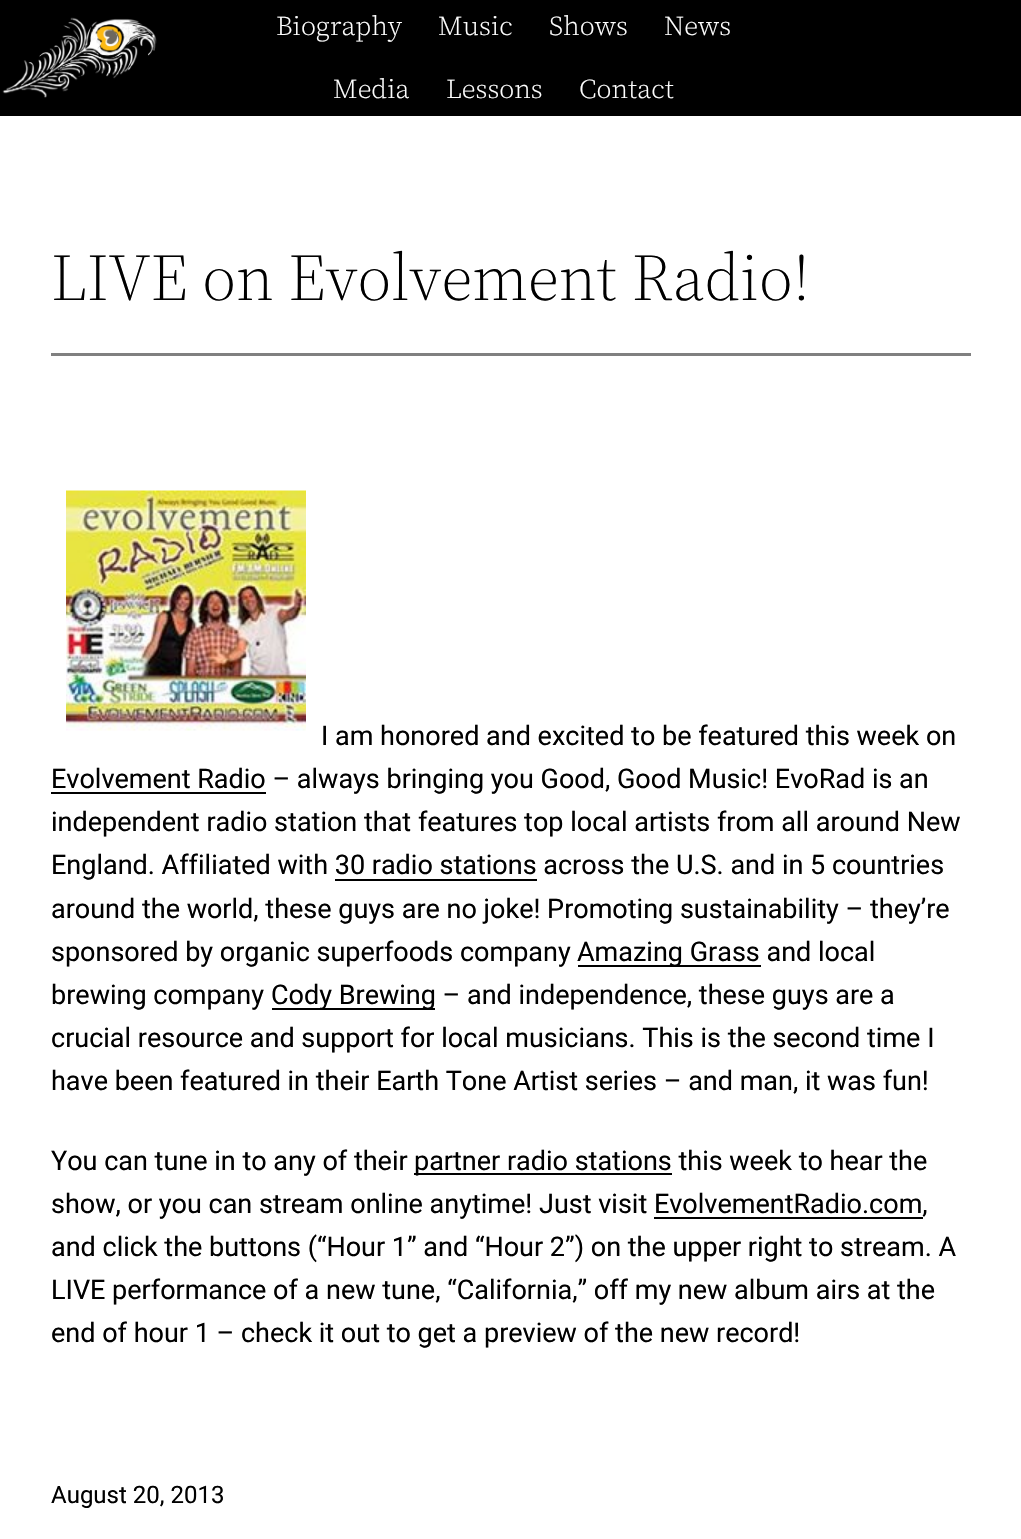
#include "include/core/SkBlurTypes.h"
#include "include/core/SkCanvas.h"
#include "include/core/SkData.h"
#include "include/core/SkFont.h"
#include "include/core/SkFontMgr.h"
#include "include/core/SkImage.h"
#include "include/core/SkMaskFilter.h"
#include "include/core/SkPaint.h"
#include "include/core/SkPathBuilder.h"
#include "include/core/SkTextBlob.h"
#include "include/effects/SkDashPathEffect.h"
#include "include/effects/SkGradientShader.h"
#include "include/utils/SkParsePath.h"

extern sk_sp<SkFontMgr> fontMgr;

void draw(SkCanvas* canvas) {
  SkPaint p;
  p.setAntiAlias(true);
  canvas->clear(SK_ColorWHITE);
  p.setColor(SK_ColorBLACK);
  canvas->drawRect(SkRect::MakeLTRB(0, 0, 1021, 116), p);
  canvas->drawImageRect(SkImages::DeferredFromEncodedData(SkData::MakeFromFileName("images/1.png")), SkRect::MakeLTRB(2, 17, 157, 98), SkSamplingOptions());
  p.setColor(SkColorSetRGB(128, 128, 128));
  canvas->drawRect(SkRect::MakeLTRB(51, 353, 971, 356), p);
  canvas->drawImageRect(SkImages::DeferredFromEncodedData(SkData::MakeFromFileName("images/2.png")), SkRect::MakeLTRB(66, 490, 306, 731), SkSamplingOptions());
  p.setColor(SK_ColorBLACK);
  canvas->drawRect(SkRect::MakeLTRB(51, 792, 266, 794), p);
  canvas->drawRect(SkRect::MakeLTRB(335, 879, 537, 881), p);
  canvas->drawRect(SkRect::MakeLTRB(578, 965, 761, 967), p);
  canvas->drawRect(SkRect::MakeLTRB(272, 1008, 435, 1010), p);
  canvas->drawRect(SkRect::MakeLTRB(414, 1173, 672, 1175), p);
  canvas->drawRect(SkRect::MakeLTRB(654, 1217, 923, 1219), p);
  SkFont font1(fontMgr->matchFamilyStyle("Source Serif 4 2", SkFontStyle(300, SkFontStyle::kNormal_Width, SkFontStyle::kUpright_Slant)), 27);
  font1.setSubpixel(true);
  p.setColor(SK_ColorWHITE);
  canvas->drawString("Biography", 276, 35, font1, p);
  canvas->drawString("Music", 438, 35, font1, p);
  canvas->drawString("Shows", 549, 35, font1, p);
  canvas->drawString("News", 664, 35, font1, p);
  canvas->drawString("Media", 333, 98, font1, p);
  canvas->drawString("Lessons", 446, 98, font1, p);
  canvas->drawString("Contact", 579, 98, font1, p);
  SkFont font2(fontMgr->matchFamilyStyle("Source Serif 4", SkFontStyle(300, SkFontStyle::kNormal_Width, SkFontStyle::kUpright_Slant)), 66);
  font2.setSubpixel(true);
  p.setColor(SK_ColorBLACK);
  canvas->drawString("LIVE on Evolvement Radio!", 51, 300, font2, p);
  SkFont font3(fontMgr->matchFamilyStyle("Roboto", SkFontStyle::Normal()), 27);
  font3.setSubpixel(true);
  canvas->drawString("I am honored and excited to be featured this week on", 321, 745, font3, p);
  canvas->drawString("Evolvement Radio – always bringing you Good, Good Music! EvoRad is an", 51, 788, font3, p);
  canvas->drawString("independent radio station that features top local artists from all around New", 51, 831, font3, p);
  canvas->drawString("England. Affiliated with 30 radio stations across the U.S. and in 5 countries", 51, 874, font3, p);
  canvas->drawString("around the world, these guys are no joke! Promoting sustainability – they’re", 51, 918, font3, p);
  canvas->drawString("sponsored by organic superfoods company", 51, 961, font3, p);
  canvas->drawString("Amazing Grass and local", 577, 961, font3, p);
  canvas->drawString("brewing company", 51, 1004, font3, p);
  canvas->drawString("Cody Brewing – and independence, these guys are a", 271, 1004, font3, p);
  canvas->drawString("crucial resource and support for local musicians. This is the second time I", 51, 1047, font3, p);
  canvas->drawString("have been featured in their Earth Tone Artist series – and man, it was fun!", 51, 1090, font3, p);
  canvas->drawString("You can tune in to any of their", 51, 1170, font3, p);
  canvas->drawString("partner radio stations this week to hear the", 414, 1170, font3, p);
  canvas->drawString("show, or you can stream online anytime! Just visit EvolvementRadio.com,", 51, 1213, font3, p);
  canvas->drawString("and click the buttons (“Hour 1” and “Hour 2”) on the upper right to stream. A", 51, 1256, font3, p);
  canvas->drawString("LIVE performance of a new tune, “California,” off my new album airs at the", 51, 1299, font3, p);
  canvas->drawString("end of hour 1 – check it out to get a preview of the new record!", 51, 1342, font3, p);
  SkFont font4(fontMgr->matchFamilyStyle("Roboto", SkFontStyle::Normal()), 24);
  font4.setSubpixel(true);
  canvas->drawString("August 20, 2013", 51, 1503, font4, p);
}
